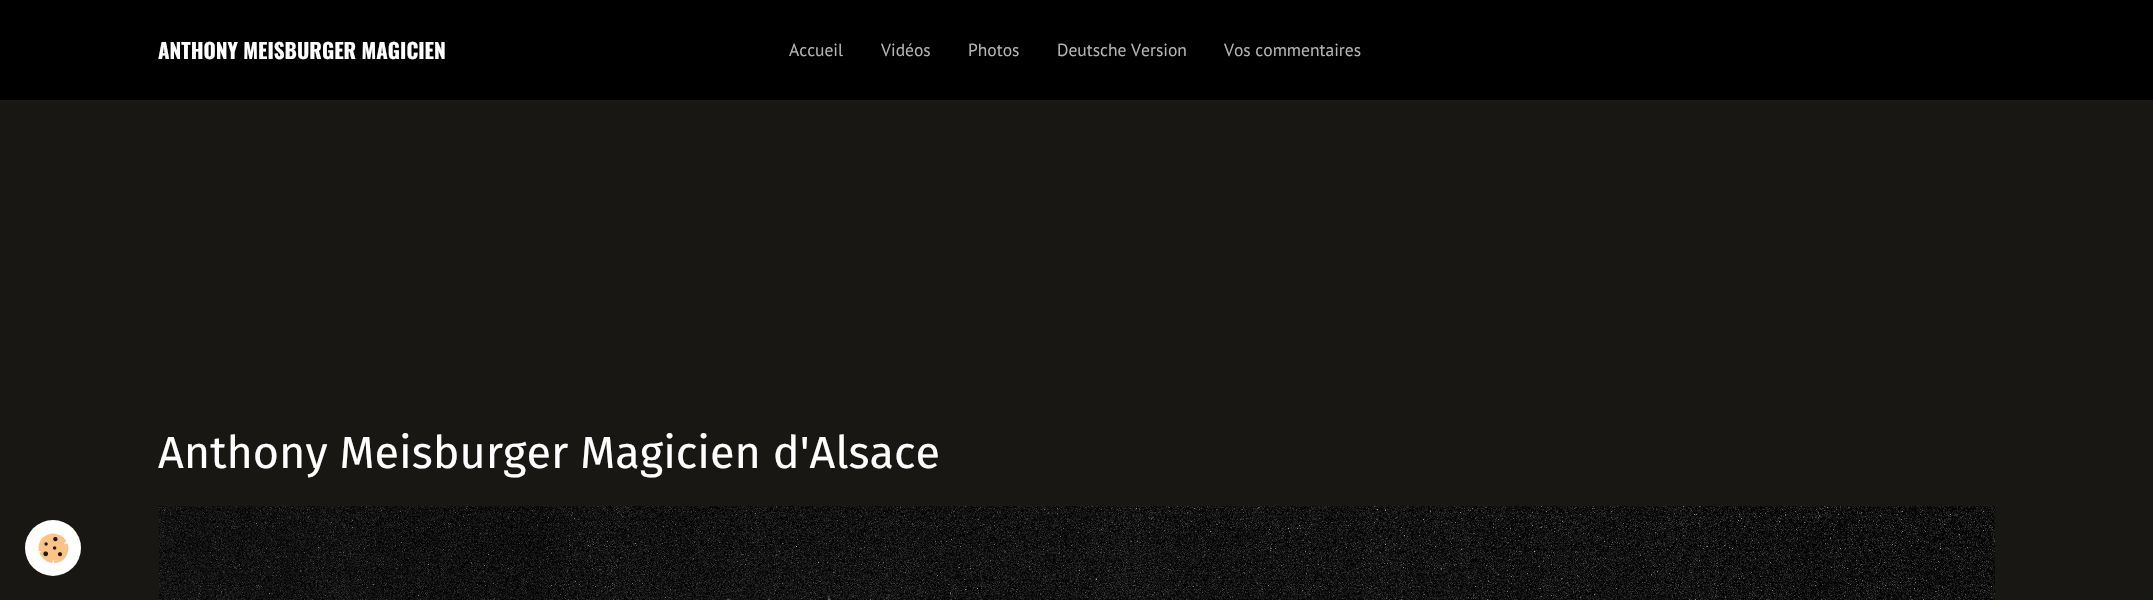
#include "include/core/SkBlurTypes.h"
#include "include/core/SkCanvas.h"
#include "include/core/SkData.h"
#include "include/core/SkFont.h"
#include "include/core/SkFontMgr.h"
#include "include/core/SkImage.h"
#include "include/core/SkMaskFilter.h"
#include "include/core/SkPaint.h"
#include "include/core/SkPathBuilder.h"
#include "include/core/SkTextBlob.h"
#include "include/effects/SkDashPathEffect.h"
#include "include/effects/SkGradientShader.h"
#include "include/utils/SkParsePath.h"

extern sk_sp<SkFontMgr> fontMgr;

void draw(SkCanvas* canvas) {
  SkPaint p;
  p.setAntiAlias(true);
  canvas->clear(SkColorSetRGB(24, 23, 20));
  p.setColor(SK_ColorBLACK);
  canvas->drawRect(SkRect::MakeLTRB(0, 0, 2153, 100), p);
  canvas->drawImageRect(SkImages::DeferredFromEncodedData(SkData::MakeFromFileName("images/1.png")), SkRect::MakeLTRB(159, 506, 1995, 600), SkSamplingOptions());
  p.setColor(SK_ColorWHITE);
  canvas->drawCircle(53, 548, 28, p);
  canvas->drawImageRect(SkImages::DeferredFromEncodedData(SkData::MakeFromFileName("images/2.png")), SkRect::MakeLTRB(38, 533, 69, 563), SkSamplingOptions());
  SkFont font1(fontMgr->matchFamilyStyle("Oswald", SkFontStyle::Bold()), 21);
  font1.setSubpixel(true);
  canvas->drawString("ANTHONY MEISBURGER MAGICIEN", 158, 59, font1, p);
  SkFont font2(fontMgr->matchFamilyStyle("PT Sans", SkFontStyle::Normal()), 17.5f);
  font2.setSubpixel(true);
  p.setColor(SkColorSetRGB(180, 180, 180));
  canvas->drawString("Accueil", 789, 56, font2, p);
  canvas->drawString("Vidéos", 881, 56, font2, p);
  canvas->drawString("Photos", 968, 56, font2, p);
  canvas->drawString("Deutsche Version", 1057, 56, font2, p);
  canvas->drawString("Vos commentaires", 1224, 56, font2, p);
  SkFont font3(fontMgr->matchFamilyStyle("Fira Sans", SkFontStyle::Normal()), 45);
  font3.setSubpixel(true);
  p.setColor(SK_ColorWHITE);
  canvas->drawString("Anthony Meisburger Magicien d'Alsace", 158, 468, font3, p);
}
